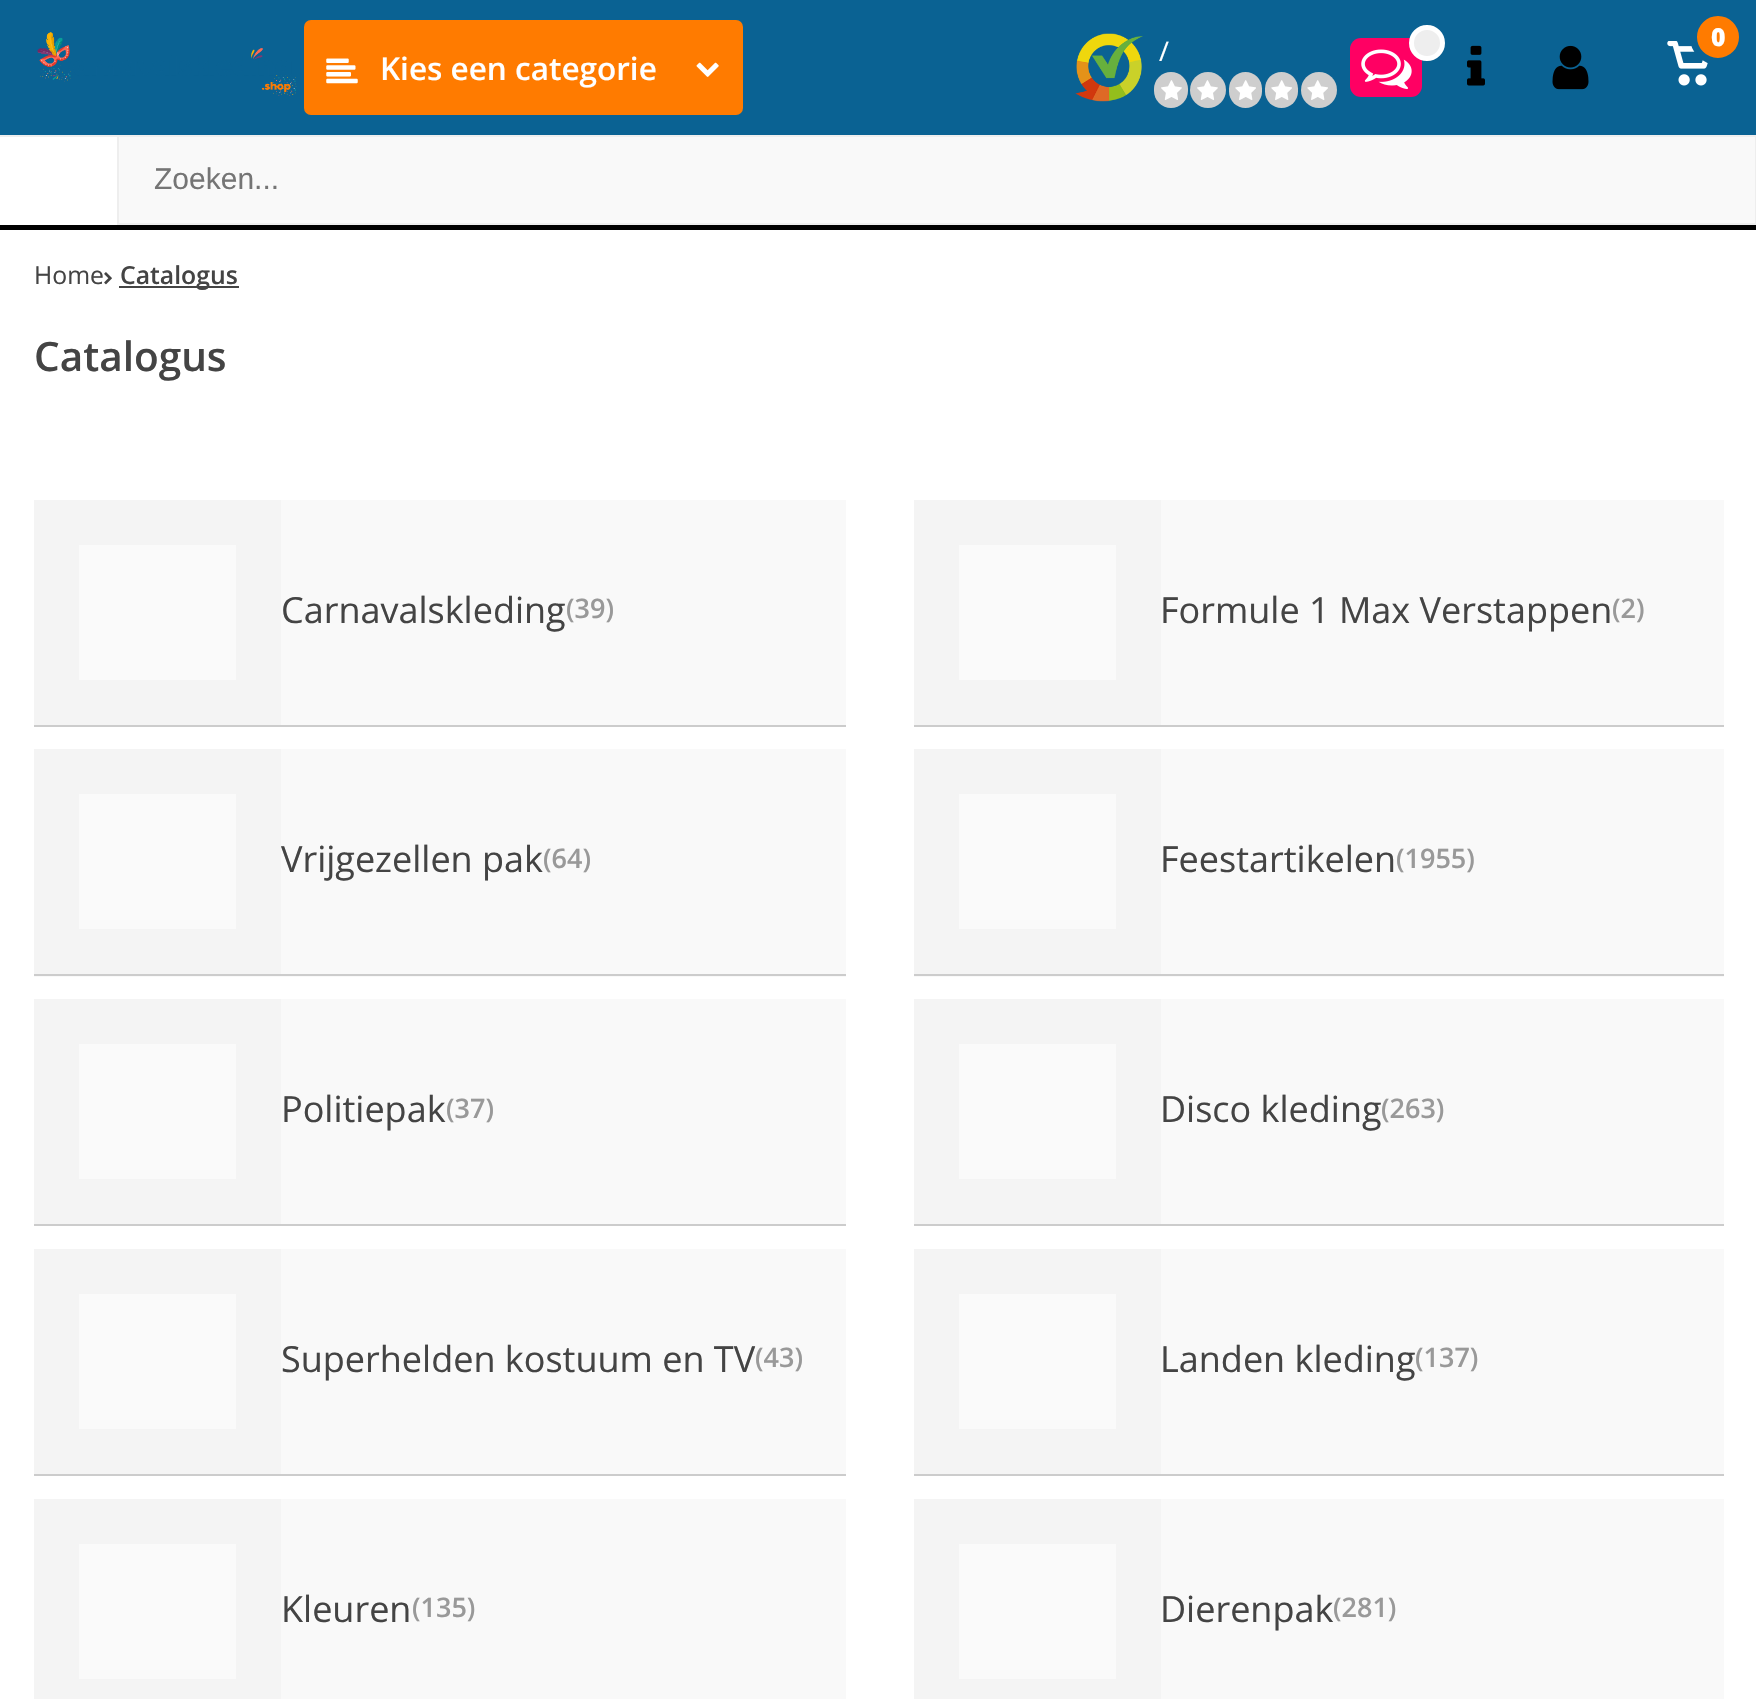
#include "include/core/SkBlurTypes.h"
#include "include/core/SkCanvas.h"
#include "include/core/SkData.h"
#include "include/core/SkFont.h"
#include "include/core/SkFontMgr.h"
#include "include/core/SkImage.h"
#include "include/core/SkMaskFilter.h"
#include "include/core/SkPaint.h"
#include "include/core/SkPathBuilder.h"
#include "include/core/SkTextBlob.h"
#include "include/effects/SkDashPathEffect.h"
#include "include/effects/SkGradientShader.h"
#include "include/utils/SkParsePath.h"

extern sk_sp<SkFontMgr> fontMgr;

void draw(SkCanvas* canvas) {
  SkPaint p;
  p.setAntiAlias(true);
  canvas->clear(SK_ColorWHITE);
  p.setColor(SkColorSetRGB(10, 98, 147));
  canvas->drawRect(SkRect::MakeLTRB(0, 0, 1756, 135), p);
  canvas->drawImageRect(SkImages::DeferredFromEncodedData(SkData::MakeFromFileName("images/1.png")), SkRect::MakeLTRB(37, 32, 297, 96), SkSamplingOptions());
  canvas->drawImageRect(SkImages::DeferredFromEncodedData(SkData::MakeFromFileName("images/2.png")), SkRect::MakeLTRB(1075, 33, 1143, 102), SkSamplingOptions());
  p.setColor(SkColorSetRGB(206, 206, 206));
  canvas->drawRoundRect(SkRect::MakeLTRB(1154, 72, 1188, 108), 17, 17, p);
  canvas->drawImageRect(SkImages::DeferredFromEncodedData(SkData::MakeFromFileName("images/3.png")), SkRect::MakeLTRB(1161, 80, 1182, 100), SkSamplingOptions());
  canvas->drawCircle(1208, 90, 18, p);
  canvas->drawImageRect(SkImages::DeferredFromEncodedData(SkData::MakeFromFileName("images/3.png")), SkRect::MakeLTRB(1197, 80, 1218, 100), SkSamplingOptions());
  canvas->drawRoundRect(SkRect::MakeLTRB(1229, 72, 1262, 108), 16.5f, 16.5f, p);
  canvas->drawImageRect(SkImages::DeferredFromEncodedData(SkData::MakeFromFileName("images/4.png")), SkRect::MakeLTRB(1235, 80, 1256, 100), SkSamplingOptions());
  canvas->drawRoundRect(SkRect::MakeLTRB(1265, 72, 1298, 108), 16.5f, 16.5f, p);
  canvas->drawImageRect(SkImages::DeferredFromEncodedData(SkData::MakeFromFileName("images/4.png")), SkRect::MakeLTRB(1271, 80, 1292, 100), SkSamplingOptions());
  canvas->drawCircle(1319, 90, 18, p);
  canvas->drawImageRect(SkImages::DeferredFromEncodedData(SkData::MakeFromFileName("images/4.png")), SkRect::MakeLTRB(1307, 80, 1328, 100), SkSamplingOptions());
  p.setColor(SkColorSetRGB(255, 0, 99));
  canvas->drawRoundRect(SkRect::MakeLTRB(1350, 38, 1422, 97), 11, 11, p);
  canvas->drawImageRect(SkImages::DeferredFromEncodedData(SkData::MakeFromFileName("images/5.png")), SkRect::MakeLTRB(1361, 49, 1412, 90), SkSamplingOptions());
  p.setColor(SkColorSetRGB(238, 238, 238));
  canvas->drawCircle(1427, 43, 15.5f, p);
  p.setStyle(SkPaint::kStroke_Style);
  p.setStrokeWidth(5);
  p.setColor(SK_ColorWHITE);
  canvas->drawCircle(1427, 43, 15.5f, p);
  canvas->drawImageRect(SkImages::DeferredFromEncodedData(SkData::MakeFromFileName("images/6.png")), SkRect::MakeLTRB(1467, 45, 1485, 86), SkSamplingOptions());
  canvas->drawImageRect(SkImages::DeferredFromEncodedData(SkData::MakeFromFileName("images/7.png")), SkRect::MakeLTRB(1552, 45, 1589, 90), SkSamplingOptions());
  canvas->drawImageRect(SkImages::DeferredFromEncodedData(SkData::MakeFromFileName("images/8.png")), SkRect::MakeLTRB(1667, 41, 1708, 86), SkSamplingOptions());
  p.setStyle(SkPaint::kFill_Style);
  p.setColor(SkColorSetRGB(255, 123, 0));
  canvas->drawCircle(1718, 37, 24.5f, p);
  p.setStyle(SkPaint::kStroke_Style);
  p.setStrokeWidth(7);
  p.setColor(SkColorSetRGB(10, 98, 147));
  canvas->drawCircle(1718, 37, 24.5f, p);
  p.setStyle(SkPaint::kFill_Style);
  p.setColor(SkColorSetRGB(255, 123, 0));
  canvas->drawRoundRect(SkRect::MakeLTRB(304, 20, 743, 115), 7, 7, p);
  canvas->drawImageRect(SkImages::DeferredFromEncodedData(SkData::MakeFromFileName("images/9.png")), SkRect::MakeLTRB(326, 58, 358, 84), SkSamplingOptions());
  canvas->drawImageRect(SkImages::DeferredFromEncodedData(SkData::MakeFromFileName("images/10.png")), SkRect::MakeLTRB(696, 62, 719, 77), SkSamplingOptions());
  p.setColor(SK_ColorBLACK);
  canvas->drawRect(SkRect::MakeLTRB(0, 225, 1756, 230), p);
  p.setColor(SkColorSetRGB(238, 238, 238));
  canvas->drawRect(SkRect::MakeLTRB(0, 135, 117, 137), p);
  p.setColor(SkColorSetRGB(249, 249, 249));
  canvas->drawRect(SkRect::MakeLTRB(118, 136, 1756, 224), p);
  p.setStyle(SkPaint::kStroke_Style);
  p.setStrokeWidth(2);
  p.setColor(SkColorSetRGB(238, 238, 238));
  canvas->drawRect(SkRect::MakeLTRB(118, 136, 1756, 224), p);
  canvas->drawImageRect(SkImages::DeferredFromEncodedData(SkData::MakeFromFileName("images/11.png")), SkRect::MakeLTRB(104, 272, 112, 285), SkSamplingOptions());
  p.setStyle(SkPaint::kFill_Style);
  p.setColor(SkColorSetRGB(68, 68, 68));
  canvas->drawRect(SkRect::MakeLTRB(119, 286, 239, 288), p);
  p.setColor(SkColorSetRGB(249, 249, 249));
  canvas->drawRect(SkRect::MakeLTRB(281, 500, 846, 725), p);
  p.setColor(SkColorSetRGB(244, 244, 244));
  canvas->drawRect(SkRect::MakeLTRB(34, 500, 281, 725), p);
  p.setColor(SkColorSetRGB(204, 204, 204));
  canvas->drawRect(SkRect::MakeLTRB(34, 725, 846, 727), p);
  p.setColor(SkColorSetRGB(250, 250, 250));
  canvas->drawRect(SkRect::MakeLTRB(79, 545, 236, 680), p);
  p.setColor(SkColorSetRGB(249, 249, 249));
  canvas->drawRect(SkRect::MakeLTRB(1161, 500, 1724, 725), p);
  p.setColor(SkColorSetRGB(244, 244, 244));
  canvas->drawRect(SkRect::MakeLTRB(914, 500, 1161, 725), p);
  p.setColor(SkColorSetRGB(204, 204, 204));
  canvas->drawRect(SkRect::MakeLTRB(914, 725, 1724, 727), p);
  p.setColor(SkColorSetRGB(250, 250, 250));
  canvas->drawRect(SkRect::MakeLTRB(959, 545, 1116, 680), p);
  p.setColor(SkColorSetRGB(249, 249, 249));
  canvas->drawRect(SkRect::MakeLTRB(34, 749, 846, 977), p);
  p.setColor(SkColorSetRGB(244, 244, 244));
  canvas->drawRect(SkRect::MakeLTRB(34, 749, 281, 974), p);
  p.setColor(SkColorSetRGB(204, 204, 204));
  canvas->drawRect(SkRect::MakeLTRB(34, 974, 846, 976), p);
  p.setColor(SkColorSetRGB(250, 250, 250));
  canvas->drawRect(SkRect::MakeLTRB(79, 794, 236, 929), p);
  p.setColor(SkColorSetRGB(249, 249, 249));
  canvas->drawRect(SkRect::MakeLTRB(914, 749, 1724, 977), p);
  p.setColor(SkColorSetRGB(244, 244, 244));
  canvas->drawRect(SkRect::MakeLTRB(914, 749, 1161, 974), p);
  p.setColor(SkColorSetRGB(204, 204, 204));
  canvas->drawRect(SkRect::MakeLTRB(914, 974, 1724, 976), p);
  p.setColor(SkColorSetRGB(250, 250, 250));
  canvas->drawRect(SkRect::MakeLTRB(959, 794, 1116, 929), p);
  p.setColor(SkColorSetRGB(249, 249, 249));
  canvas->drawRect(SkRect::MakeLTRB(281, 999, 846, 1224), p);
  p.setColor(SkColorSetRGB(244, 244, 244));
  canvas->drawRect(SkRect::MakeLTRB(34, 999, 281, 1224), p);
  p.setColor(SkColorSetRGB(204, 204, 204));
  canvas->drawRect(SkRect::MakeLTRB(34, 1224, 846, 1226), p);
  p.setColor(SkColorSetRGB(250, 250, 250));
  canvas->drawRect(SkRect::MakeLTRB(79, 1044, 236, 1179), p);
  p.setColor(SkColorSetRGB(249, 249, 249));
  canvas->drawRect(SkRect::MakeLTRB(1161, 999, 1724, 1224), p);
  p.setColor(SkColorSetRGB(244, 244, 244));
  canvas->drawRect(SkRect::MakeLTRB(914, 999, 1161, 1224), p);
  p.setColor(SkColorSetRGB(204, 204, 204));
  canvas->drawRect(SkRect::MakeLTRB(914, 1224, 1724, 1226), p);
  p.setColor(SkColorSetRGB(250, 250, 250));
  canvas->drawRect(SkRect::MakeLTRB(959, 1044, 1116, 1179), p);
  p.setColor(SkColorSetRGB(249, 249, 249));
  canvas->drawRect(SkRect::MakeLTRB(281, 1249, 846, 1474), p);
  p.setColor(SkColorSetRGB(244, 244, 244));
  canvas->drawRect(SkRect::MakeLTRB(34, 1249, 281, 1474), p);
  p.setColor(SkColorSetRGB(204, 204, 204));
  canvas->drawRect(SkRect::MakeLTRB(34, 1474, 846, 1476), p);
  p.setColor(SkColorSetRGB(250, 250, 250));
  canvas->drawRect(SkRect::MakeLTRB(79, 1294, 236, 1429), p);
  p.setColor(SkColorSetRGB(249, 249, 249));
  canvas->drawRect(SkRect::MakeLTRB(1161, 1249, 1724, 1474), p);
  p.setColor(SkColorSetRGB(244, 244, 244));
  canvas->drawRect(SkRect::MakeLTRB(914, 1249, 1161, 1474), p);
  p.setColor(SkColorSetRGB(204, 204, 204));
  canvas->drawRect(SkRect::MakeLTRB(914, 1474, 1724, 1476), p);
  p.setColor(SkColorSetRGB(250, 250, 250));
  canvas->drawRect(SkRect::MakeLTRB(959, 1294, 1116, 1429), p);
  p.setColor(SkColorSetRGB(249, 249, 249));
  canvas->drawRect(SkRect::MakeLTRB(281, 1499, 846, 1699), p);
  p.setColor(SkColorSetRGB(244, 244, 244));
  canvas->drawRect(SkRect::MakeLTRB(34, 1499, 281, 1699), p);
  p.setColor(SkColorSetRGB(250, 250, 250));
  canvas->drawRect(SkRect::MakeLTRB(79, 1544, 236, 1679), p);
  p.setColor(SkColorSetRGB(249, 249, 249));
  canvas->drawRect(SkRect::MakeLTRB(1161, 1499, 1724, 1699), p);
  p.setColor(SkColorSetRGB(244, 244, 244));
  canvas->drawRect(SkRect::MakeLTRB(914, 1499, 1161, 1699), p);
  p.setColor(SkColorSetRGB(250, 250, 250));
  canvas->drawRect(SkRect::MakeLTRB(959, 1544, 1116, 1679), p);
  SkFont font1(fontMgr->matchFamilyStyle("Open Sans", SkFontStyle::Normal()), 27);
  font1.setSubpixel(true);
  p.setColor(SK_ColorWHITE);
  canvas->drawString("/", 1159, 61, font1, p);
  SkFont font2(fontMgr->matchFamilyStyle("Open Sans", SkFontStyle(800, SkFontStyle::kNormal_Width, SkFontStyle::kUpright_Slant)), 24.75f);
  font2.setSubpixel(true);
  canvas->drawString("0", 1711, 46, font2, p);
  SkFont font3(fontMgr->matchFamilyStyle("Open Sans", SkFontStyle(600, SkFontStyle::kNormal_Width, SkFontStyle::kUpright_Slant)), 31.5f);
  font3.setSubpixel(true);
  canvas->drawString("Kies een categorie", 380, 80, font3, p);
  SkFont font4(fontMgr->matchFamilyStyle("Liberation Sans", SkFontStyle::Normal()), 30);
  font4.setSubpixel(true);
  p.setColor(SkColorSetRGB(117, 117, 117));
  canvas->drawString("Zoeken...", 154, 189, font4, p);
  SkFont font5(fontMgr->matchFamilyStyle("Open Sans", SkFontStyle::Normal()), 24.75f);
  font5.setSubpixel(true);
  p.setColor(SkColorSetRGB(68, 68, 68));
  canvas->drawString("Home", 34, 284, font5, p);
  SkFont font6(fontMgr->matchFamilyStyle("Open Sans", SkFontStyle(600, SkFontStyle::kNormal_Width, SkFontStyle::kUpright_Slant)), 24.75f);
  font6.setSubpixel(true);
  canvas->drawString("Catalogus", 120, 284, font6, p);
  SkFont font7(fontMgr->matchFamilyStyle("Open Sans", SkFontStyle(600, SkFontStyle::kNormal_Width, SkFontStyle::kUpright_Slant)), 40.5f);
  font7.setSubpixel(true);
  canvas->drawString("Catalogus", 34, 371, font7, p);
  SkFont font8(fontMgr->matchFamilyStyle("Open Sans", SkFontStyle::Normal()), 36);
  font8.setSubpixel(true);
  canvas->drawString("Carnavalskleding", 281, 623, font8, p);
  SkFont font9(fontMgr->matchFamilyStyle("Open Sans", SkFontStyle(600, SkFontStyle::kNormal_Width, SkFontStyle::kUpright_Slant)), 27);
  font9.setSubpixel(true);
  p.setColor(SkColorSetRGB(153, 153, 153));
  canvas->drawString("(39)", 566, 618, font9, p);
  p.setColor(SkColorSetRGB(68, 68, 68));
  canvas->drawString("Formule 1 Max Verstappen", 1160, 623, font8, p);
  p.setColor(SkColorSetRGB(153, 153, 153));
  canvas->drawString("(2)", 1612, 618, font9, p);
  p.setColor(SkColorSetRGB(68, 68, 68));
  canvas->drawString("Vrijgezellen pak", 281, 872, font8, p);
  p.setColor(SkColorSetRGB(153, 153, 153));
  canvas->drawString("(64)", 543, 868, font9, p);
  p.setColor(SkColorSetRGB(68, 68, 68));
  canvas->drawString("Feestartikelen", 1160, 872, font8, p);
  p.setColor(SkColorSetRGB(153, 153, 153));
  canvas->drawString("(1955)", 1396, 868, font9, p);
  p.setColor(SkColorSetRGB(68, 68, 68));
  canvas->drawString("Politiepak", 281, 1122, font8, p);
  p.setColor(SkColorSetRGB(153, 153, 153));
  canvas->drawString("(37)", 446, 1118, font9, p);
  p.setColor(SkColorSetRGB(68, 68, 68));
  canvas->drawString("Disco kleding", 1160, 1122, font8, p);
  p.setColor(SkColorSetRGB(153, 153, 153));
  canvas->drawString("(263)", 1381, 1118, font9, p);
  p.setColor(SkColorSetRGB(68, 68, 68));
  canvas->drawString("Superhelden kostuum en TV", 281, 1372, font8, p);
  p.setColor(SkColorSetRGB(153, 153, 153));
  canvas->drawString("(43)", 755, 1367, font9, p);
  p.setColor(SkColorSetRGB(68, 68, 68));
  canvas->drawString("Landen kleding", 1160, 1372, font8, p);
  p.setColor(SkColorSetRGB(153, 153, 153));
  canvas->drawString("(137)", 1415, 1367, font9, p);
  p.setColor(SkColorSetRGB(68, 68, 68));
  canvas->drawString("Kleuren", 281, 1622, font8, p);
  p.setColor(SkColorSetRGB(153, 153, 153));
  canvas->drawString("(135)", 412, 1617, font9, p);
  p.setColor(SkColorSetRGB(68, 68, 68));
  canvas->drawString("Dierenpak", 1160, 1622, font8, p);
  p.setColor(SkColorSetRGB(153, 153, 153));
  canvas->drawString("(281)", 1333, 1617, font9, p);
}
